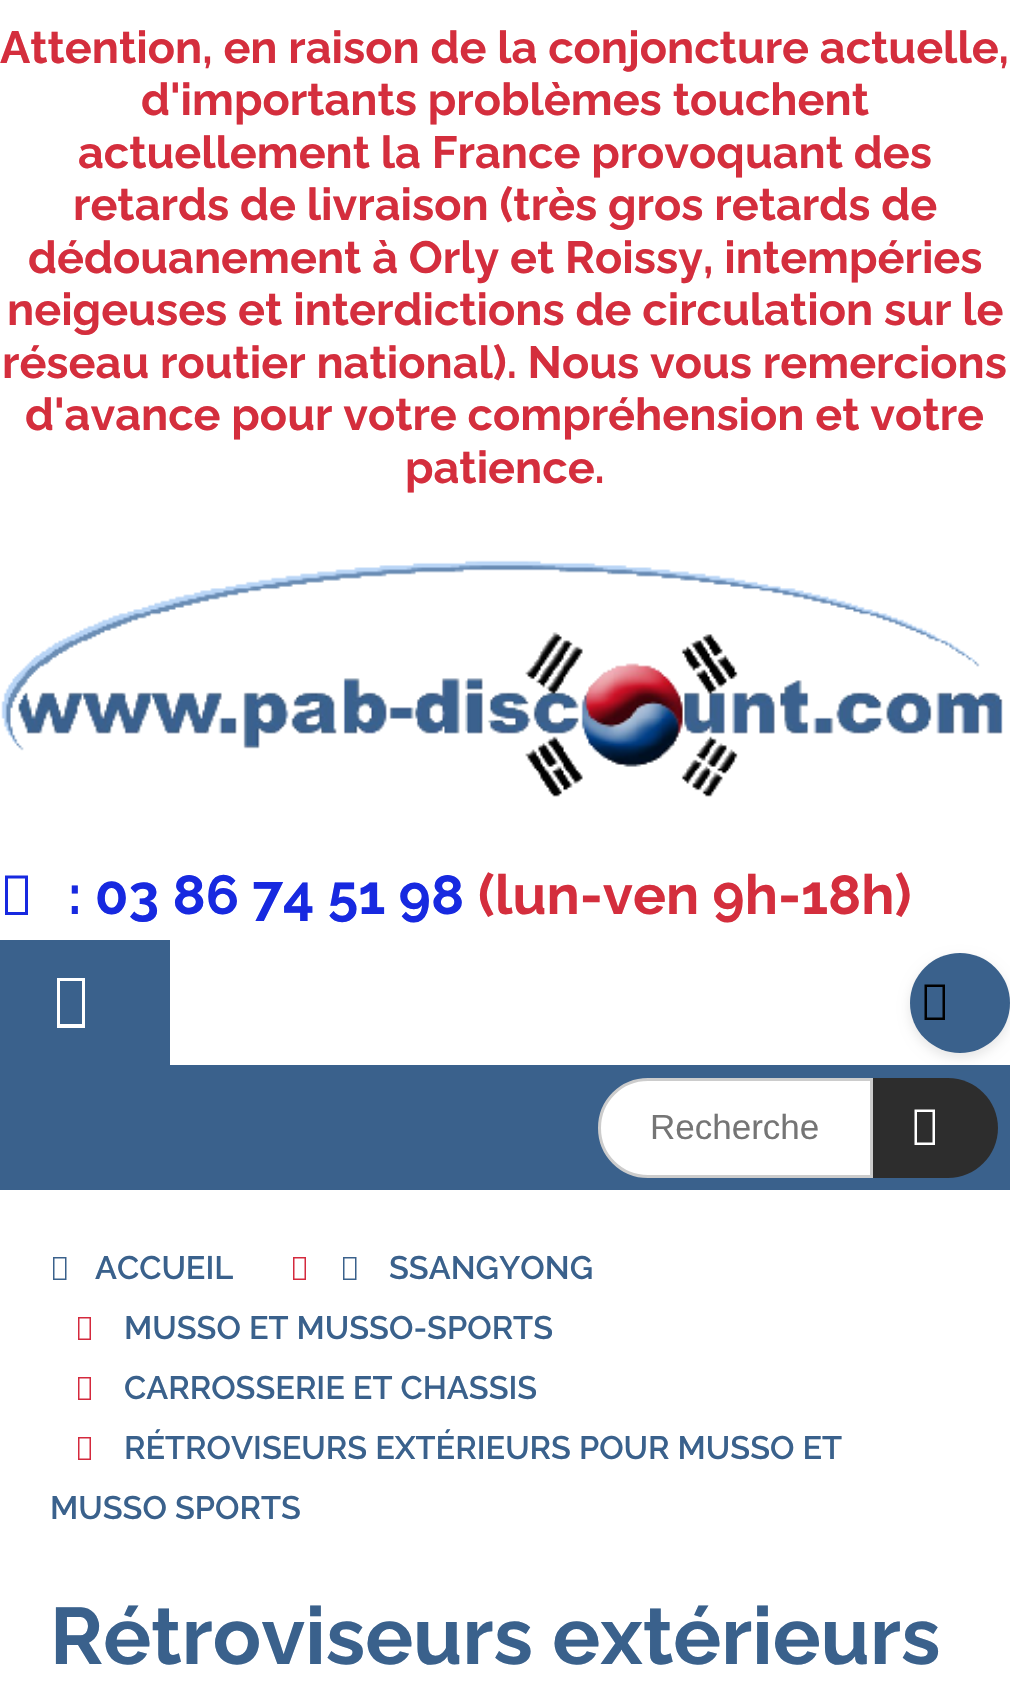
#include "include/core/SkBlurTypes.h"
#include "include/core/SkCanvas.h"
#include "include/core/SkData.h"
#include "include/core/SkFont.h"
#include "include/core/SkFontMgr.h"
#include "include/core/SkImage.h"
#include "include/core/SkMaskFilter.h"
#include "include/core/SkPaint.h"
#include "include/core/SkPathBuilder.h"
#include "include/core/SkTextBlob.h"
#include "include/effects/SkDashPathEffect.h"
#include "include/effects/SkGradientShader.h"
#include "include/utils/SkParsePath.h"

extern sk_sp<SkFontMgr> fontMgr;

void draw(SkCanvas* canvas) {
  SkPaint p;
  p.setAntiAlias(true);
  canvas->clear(SK_ColorWHITE);
  canvas->drawImageRect(SkImages::DeferredFromEncodedData(SkData::MakeFromFileName("images/1.png")), SkRect::MakeLTRB(1, 560, 1003, 797), SkSamplingOptions());
  p.setColor(SkColorSetRGB(23, 41, 224));
  canvas->drawPath(SkPathBuilder().moveTo(5, 915).lineTo(5, 875.5f).lineTo(28, 875.5f).lineTo(28, 915).close().moveTo(8, 912).lineTo(25, 912).lineTo(25, 878.5f).lineTo(8, 878.5f).close().detach(), p);
  p.setColor(SkColorSetRGB(58, 97, 140));
  canvas->drawRect(SkRect::MakeLTRB(0, 940, 170, 1065), p);
  p.setColor(SK_ColorWHITE);
  canvas->drawPath(SkPathBuilder().moveTo(57, 1028).lineTo(57, 978).lineTo(85, 978).lineTo(85, 1028).close().moveTo(60, 1024).lineTo(82, 1024).lineTo(82, 981).lineTo(60, 981).close().detach(), p);
  p.setColor(SkColorSetRGB(58, 97, 140));
  canvas->drawRect(SkRect::MakeLTRB(0, 1065, 1010, 1190), p);
  p.setColor(SkColorSetARGB(26, 0, 0, 0));
  p.setMaskFilter(SkMaskFilter::MakeBlur(kNormal_SkBlurStyle, 6));
  canvas->drawRoundRect(SkRect::MakeLTRB(910, 958, 1010, 1058), 50, 50, p);
  p.setMaskFilter(nullptr);
  p.setColor(SkColorSetRGB(58, 97, 140));
  canvas->drawCircle(960, 1003, 50, p);
  p.setColor(SK_ColorBLACK);
  canvas->drawPath(SkPathBuilder().moveTo(924.5f, 1020).lineTo(924.5f, 984.5f).lineTo(945, 984.5f).lineTo(945, 1020).close().moveTo(927, 1017.5f).lineTo(942.5f, 1017.5f).lineTo(942.5f, 987).lineTo(927, 987).close().detach(), p);
  p.setColor(SK_ColorWHITE);
  canvas->drawPath(SkPathBuilder().moveTo(648, 1079.5f).lineTo(871.5f, 1079.5f).lineTo(871.5f, 1176.5f).lineTo(648, 1176.5f).cubicTo(621, 1176.5f, 599.5f, 1155, 599.5f, 1128).cubicTo(599.5f, 1101, 621, 1079.5f, 648, 1079.5f).close().detach(), p);
  p.setStyle(SkPaint::kStroke_Style);
  p.setStrokeWidth(3);
  p.setColor(SkColorSetRGB(204, 204, 204));
  canvas->drawPath(SkPathBuilder().moveTo(648, 1079.5f).lineTo(871.5f, 1079.5f).lineTo(871.5f, 1176.5f).lineTo(648, 1176.5f).cubicTo(621, 1176.5f, 599.5f, 1155, 599.5f, 1128).cubicTo(599.5f, 1101, 621, 1079.5f, 648, 1079.5f).close().detach(), p);
  p.setStyle(SkPaint::kFill_Style);
  p.setColor(SkColorSetRGB(45, 45, 45));
  canvas->drawPath(SkPathBuilder().moveTo(873, 1078).lineTo(948, 1078).cubicTo(975.5f, 1078, 998, 1100.5f, 998, 1128).cubicTo(998, 1155.5f, 975.5f, 1178, 948, 1178).lineTo(873, 1178).close().detach(), p);
  p.setColor(SK_ColorWHITE);
  canvas->drawPath(SkPathBuilder().moveTo(914.5f, 1145).lineTo(914.5f, 1109.5f).lineTo(935, 1109.5f).lineTo(935, 1145).close().moveTo(917, 1142.5f).lineTo(932.5f, 1142.5f).lineTo(932.5f, 1112).lineTo(917, 1112).close().detach(), p);
  p.setColor(SkColorSetRGB(58, 97, 140));
  canvas->drawPath(SkPathBuilder().moveTo(53, 1280).lineTo(53, 1257).lineTo(66.5f, 1257).lineTo(66.5f, 1280).close().moveTo(54.5f, 1278.5f).lineTo(65, 1278.5f).lineTo(65, 1258.5f).lineTo(54.5f, 1258.5f).close().detach(), p);
  p.setColor(SkColorSetRGB(212, 41, 61));
  canvas->drawPath(SkPathBuilder().moveTo(293, 1280).lineTo(293, 1257).lineTo(306, 1257).lineTo(306, 1280).close().moveTo(294.5f, 1278.5f).lineTo(304.5f, 1278.5f).lineTo(304.5f, 1258.5f).lineTo(294.5f, 1258.5f).close().detach(), p);
  p.setColor(SkColorSetRGB(58, 97, 140));
  canvas->drawPath(SkPathBuilder().moveTo(343, 1280).lineTo(343, 1257).lineTo(356.5f, 1257).lineTo(356.5f, 1280).close().moveTo(344.5f, 1278.5f).lineTo(355, 1278.5f).lineTo(355, 1258.5f).lineTo(344.5f, 1258.5f).close().detach(), p);
  p.setColor(SkColorSetRGB(212, 41, 61));
  canvas->drawPath(SkPathBuilder().moveTo(78, 1340).lineTo(78, 1317).lineTo(91, 1317).lineTo(91, 1340).close().moveTo(79.5f, 1338.5f).lineTo(89.5f, 1338.5f).lineTo(89.5f, 1318.5f).lineTo(79.5f, 1318.5f).close().detach(), p);
  canvas->drawPath(SkPathBuilder().moveTo(78, 1400).lineTo(78, 1377).lineTo(91, 1377).lineTo(91, 1400).close().moveTo(79.5f, 1398.5f).lineTo(89.5f, 1398.5f).lineTo(89.5f, 1378.5f).lineTo(79.5f, 1378.5f).close().detach(), p);
  canvas->drawPath(SkPathBuilder().moveTo(78, 1460).lineTo(78, 1437).lineTo(91, 1437).lineTo(91, 1460).close().moveTo(79.5f, 1458.5f).lineTo(89.5f, 1458.5f).lineTo(89.5f, 1438.5f).lineTo(79.5f, 1438.5f).close().detach(), p);
  SkFont font1(fontMgr->matchFamilyStyle("Raleway", SkFontStyle::Bold()), 45);
  font1.setSubpixel(true);
  p.setColor(SkColorSetRGB(212, 46, 61));
  canvas->drawString("Attention, en raison de la conjoncture actuelle,", 0, 63, font1, p);
  canvas->drawString("d'importants problèmes touchent", 141, 115, font1, p);
  canvas->drawString("actuellement la France provoquant des", 78, 168, font1, p);
  canvas->drawString("retards de livraison (très gros retards de", 73, 220, font1, p);
  canvas->drawString("dédouanement à Orly et Roissy, intempéries", 28, 273, font1, p);
  canvas->drawString("neigeuses et interdictions de circulation sur le", 7, 325, font1, p);
  canvas->drawString("réseau routier national). Nous vous remercions", 2, 378, font1, p);
  canvas->drawString("d'avance pour votre compréhension et votre", 25, 430, font1, p);
  canvas->drawString("patience.", 405, 483, font1, p);
  SkFont font2(fontMgr->matchFamilyStyle("Raleway", SkFontStyle::Bold()), 55);
  font2.setSubpixel(true);
  p.setColor(SkColorSetRGB(23, 41, 224));
  canvas->drawString(": 03 86 74 51 98", 68, 914, font2, p);
  p.setColor(SkColorSetRGB(212, 46, 61));
  canvas->drawString("(lun-ven 9h-18h)", 478, 914, font2, p);
  SkFont font3(fontMgr->matchFamilyStyle("Liberation Sans", SkFontStyle::Normal()), 35);
  font3.setSubpixel(true);
  p.setColor(SkColorSetRGB(117, 117, 117));
  canvas->drawString("Recherche", 650, 1139, font3, p);
  SkFont font4(fontMgr->matchFamilyStyle("Raleway", SkFontStyle(600, SkFontStyle::kNormal_Width, SkFontStyle::kUpright_Slant)), 32.5f);
  font4.setSubpixel(true);
  p.setColor(SkColorSetRGB(58, 97, 140));
  canvas->drawString("ACCUEIL", 95, 1279, font4, p);
  canvas->drawString("SSANGYONG", 389, 1279, font4, p);
  canvas->drawString("MUSSO ET MUSSO-SPORTS", 124, 1339, font4, p);
  canvas->drawString("CARROSSERIE ET CHASSIS", 124, 1399, font4, p);
  canvas->drawString("RÉTROVISEURS EXTÉRIEURS POUR MUSSO ET", 124, 1459, font4, p);
  canvas->drawString("MUSSO SPORTS", 50, 1519, font4, p);
  SkFont font5(fontMgr->matchFamilyStyle("Raleway", SkFontStyle::Bold()), 80);
  font5.setSubpixel(true);
  canvas->drawString("Rétroviseurs extérieurs", 50, 1664, font5, p);
}
